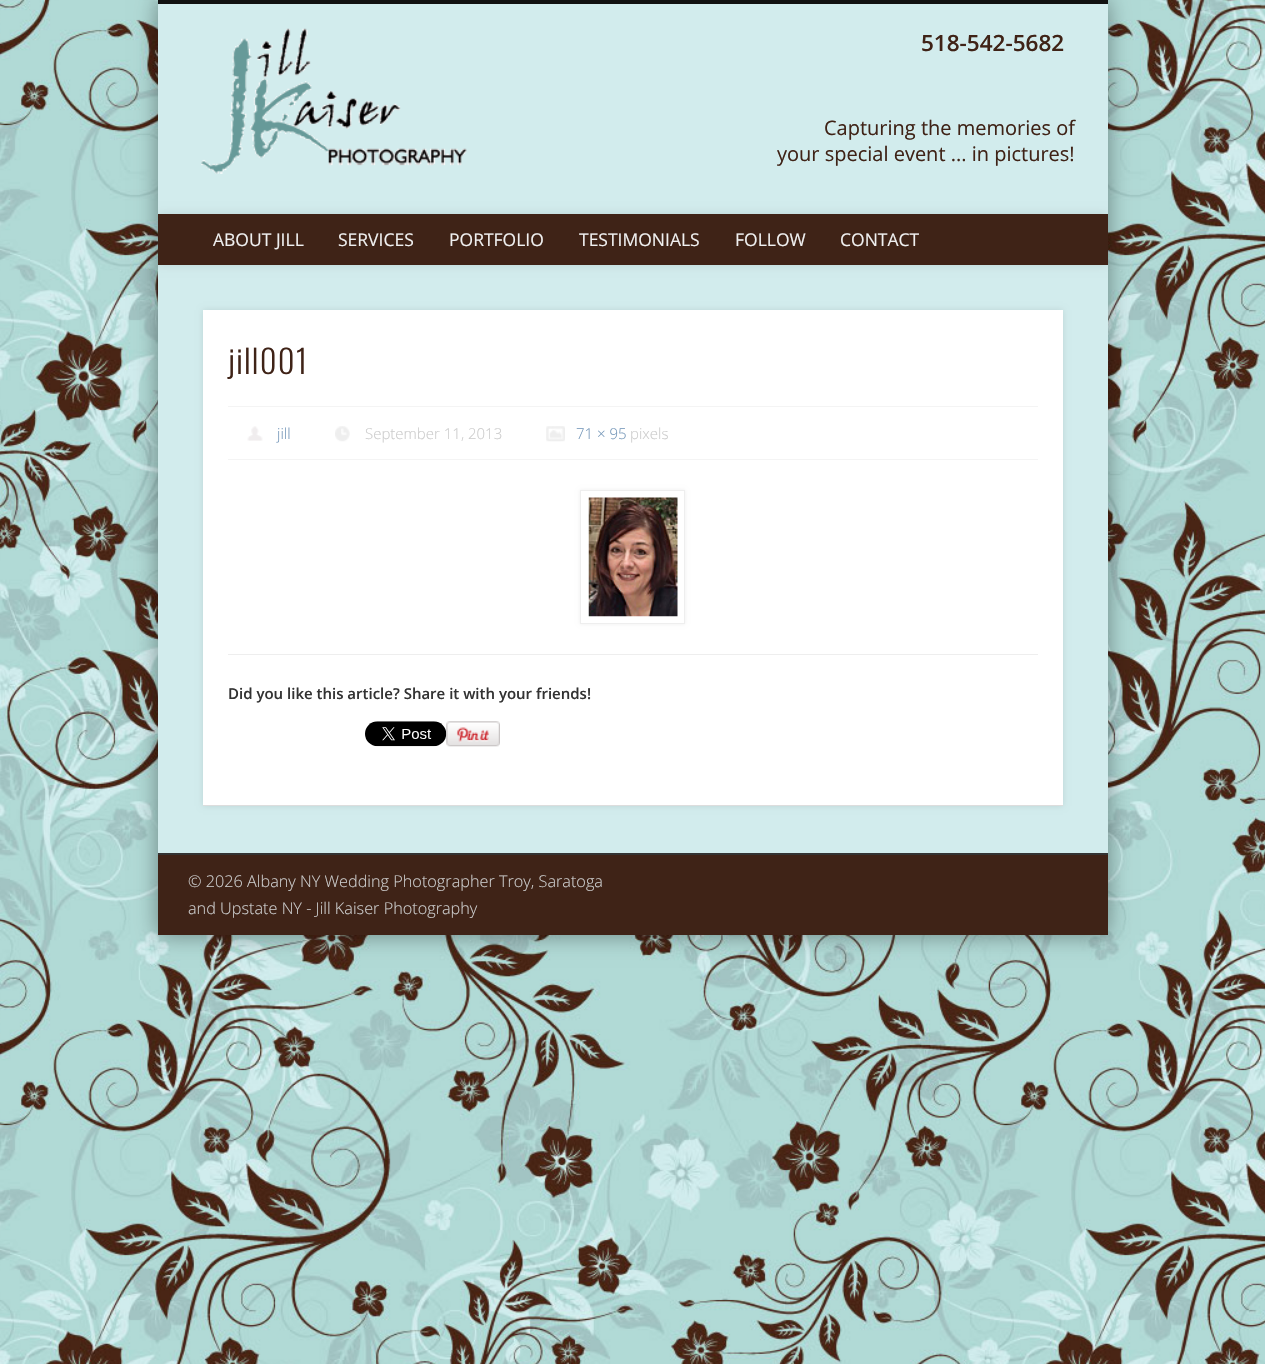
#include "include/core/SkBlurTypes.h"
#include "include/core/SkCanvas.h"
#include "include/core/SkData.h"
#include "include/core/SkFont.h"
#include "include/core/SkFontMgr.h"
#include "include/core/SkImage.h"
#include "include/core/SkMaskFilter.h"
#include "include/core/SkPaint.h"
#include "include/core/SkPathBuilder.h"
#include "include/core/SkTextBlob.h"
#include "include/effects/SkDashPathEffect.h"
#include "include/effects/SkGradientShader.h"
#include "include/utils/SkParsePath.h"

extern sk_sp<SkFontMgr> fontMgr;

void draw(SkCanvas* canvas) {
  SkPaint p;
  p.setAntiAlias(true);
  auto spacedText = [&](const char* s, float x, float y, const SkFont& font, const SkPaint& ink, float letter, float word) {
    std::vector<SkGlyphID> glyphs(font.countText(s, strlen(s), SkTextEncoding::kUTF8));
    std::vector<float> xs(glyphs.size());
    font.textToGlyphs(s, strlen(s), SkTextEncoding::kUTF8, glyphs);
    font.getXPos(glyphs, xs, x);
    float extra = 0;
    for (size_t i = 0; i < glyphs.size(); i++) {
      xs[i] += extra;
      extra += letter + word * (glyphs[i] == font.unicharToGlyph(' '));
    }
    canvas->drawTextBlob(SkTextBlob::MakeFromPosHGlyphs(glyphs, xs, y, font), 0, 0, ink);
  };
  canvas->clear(SK_ColorWHITE);
  canvas->drawImageRect(SkImages::DeferredFromEncodedData(SkData::MakeFromFileName("images/1.png")), SkRect::MakeLTRB(0, 0, 1265, 1364), SkSamplingOptions());
  p.setColor(SkColorSetARGB(102, 0, 0, 0));
  p.setMaskFilter(SkMaskFilter::MakeBlur(kNormal_SkBlurStyle, 11));
  canvas->drawRect(SkRect::MakeLTRB(158, 0, 1108, 935), p);
  p.setMaskFilter(nullptr);
  p.setColor(SkColorSetRGB(210, 236, 237));
  canvas->drawRect(SkRect::MakeLTRB(158, 4, 1108, 853), p);
  p.setColor(SkColorSetRGB(17, 17, 17));
  canvas->drawRect(SkRect::MakeLTRB(158, 0, 1108, 4), p);
  canvas->drawImageRect(SkImages::DeferredFromEncodedData(SkData::MakeFromFileName("images/2.png")), SkRect::MakeLTRB(201, 28, 467, 174), SkSamplingOptions());
  canvas->save();
  canvas->clipRect(SkRect::MakeLTRB(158, 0, 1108, 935));
  p.setColor(SkColorSetARGB(26, 0, 0, 0));
  p.setMaskFilter(SkMaskFilter::MakeBlur(kNormal_SkBlurStyle, 4.5f));
  canvas->drawRect(SkRect::MakeLTRB(158, 214, 1108, 265), p);
  p.setMaskFilter(nullptr);
  canvas->restore();
  p.setColor(SkColorSetRGB(63, 35, 23));
  canvas->drawRect(SkRect::MakeLTRB(158, 214, 1108, 265), p);
  p.setColor(SkColorSetARGB(26, 0, 0, 0));
  p.setMaskFilter(SkMaskFilter::MakeBlur(kNormal_SkBlurStyle, 3));
  canvas->drawRect(SkRect::MakeLTRB(203, 310, 1063, 806), p);
  p.setMaskFilter(nullptr);
  p.setColor(SK_ColorWHITE);
  canvas->drawRect(SkRect::MakeLTRB(203, 310, 1063, 805), p);
  p.setColor(SkColorSetRGB(221, 221, 221));
  canvas->drawRect(SkRect::MakeLTRB(203, 805, 1063, 806), p);
  p.setColor(SkColorSetRGB(244, 244, 244));
  canvas->drawRect(SkRect::MakeLTRB(228, 406, 1038, 407), p);
  canvas->drawRect(SkRect::MakeLTRB(228, 459, 1038, 460), p);
  canvas->drawImageRect(SkImages::DeferredFromEncodedData(SkData::MakeFromFileName("images/3.png")), SkRect::MakeLTRB(247, 426, 263, 441), SkSamplingOptions());
  canvas->drawImageRect(SkImages::DeferredFromEncodedData(SkData::MakeFromFileName("images/4.png")), SkRect::MakeLTRB(335, 426, 350, 442), SkSamplingOptions());
  canvas->drawImageRect(SkImages::DeferredFromEncodedData(SkData::MakeFromFileName("images/5.png")), SkRect::MakeLTRB(546, 426, 565, 442), SkSamplingOptions());
  p.setColor(SkColorSetRGB(238, 238, 238));
  p.setMaskFilter(SkMaskFilter::MakeBlur(kNormal_SkBlurStyle, 2));
  canvas->drawRect(SkRect::MakeLTRB(580, 490, 685, 624), p);
  p.setMaskFilter(nullptr);
  p.setColor(SK_ColorWHITE);
  canvas->drawRect(SkRect::MakeLTRB(580.5f, 490.5f, 684.5f, 623.5f), p);
  p.setStyle(SkPaint::kStroke_Style);
  p.setStrokeWidth(1);
  p.setColor(SkColorSetRGB(238, 238, 238));
  canvas->drawRect(SkRect::MakeLTRB(580.5f, 490.5f, 684.5f, 623.5f), p);
  canvas->drawImageRect(SkImages::DeferredFromEncodedData(SkData::MakeFromFileName("images/6.png")), SkRect::MakeLTRB(588, 497, 678, 617), SkSamplingOptions());
  p.setStyle(SkPaint::kFill_Style);
  canvas->drawRect(SkRect::MakeLTRB(228, 654, 1038, 655), p);
  canvas->drawImageRect(SkImages::DeferredFromEncodedData(SkData::MakeFromFileName("images/8.png")), SkRect::MakeLTRB(446, 721, 500, 747), SkSamplingOptions());
  canvas->drawImageRect(SkImages::DeferredFromEncodedData(SkData::MakeFromFileName("images/7.png")), SkRect::MakeLTRB(365, 721, 447, 747), SkSamplingOptions());
  p.setColor(SkColorSetRGB(51, 51, 51));
  canvas->drawRect(SkRect::MakeLTRB(158, 853, 1108, 855), p);
  p.setColor(SkColorSetRGB(63, 35, 23));
  canvas->drawRect(SkRect::MakeLTRB(158, 855, 1108, 935), p);
  SkFont font1(fontMgr->matchFamilyStyle("Open Sans", SkFontStyle(600, SkFontStyle::kNormal_Width, SkFontStyle::kUpright_Slant)), 22.5f);
  font1.setSubpixel(true);
  canvas->drawString("518-542-5682", 921, 51, font1, p);
  SkFont font2(fontMgr->matchFamilyStyle("Open Sans", SkFontStyle::Normal()), 20);
  font2.setSubpixel(true);
  canvas->drawString("Capturing the memories of", 824, 135, font2, p);
  canvas->drawString("your special event ... in pictures!", 777, 161, font2, p);
  SkFont font3(fontMgr->matchFamilyStyle("Open Sans", SkFontStyle::Normal()), 17.5f);
  font3.setSubpixel(true);
  p.setColor(SkColorSetRGB(240, 240, 240));
  canvas->drawString("ABOUT JILL", 213, 246, font3, p);
  canvas->drawString("SERVICES", 338, 246, font3, p);
  canvas->drawString("PORTFOLIO", 449, 246, font3, p);
  canvas->drawString("TESTIMONIALS", 579, 246, font3, p);
  canvas->drawString("FOLLOW", 735, 246, font3, p);
  canvas->drawString("CONTACT", 840, 246, font3, p);
  SkFont font4(fontMgr->matchFamilyStyle("Oswald", SkFontStyle(300, SkFontStyle::kNormal_Width, SkFontStyle::kUpright_Slant)), 32.5f);
  font4.setSubpixel(true);
  p.setColor(SkColorSetRGB(63, 35, 23));
  spacedText("jill001", 228, 374, font4, p, 1.25f, 0);
  SkFont font5(fontMgr->matchFamilyStyle("Open Sans", SkFontStyle(300, SkFontStyle::kNormal_Width, SkFontStyle::kUpright_Slant)), 15);
  font5.setSubpixel(true);
  p.setColor(SkColorSetRGB(117, 151, 185));
  canvas->drawString("jill", 277, 439, font5, p);
  p.setColor(SkColorSetRGB(204, 204, 204));
  canvas->drawString("September 11, 2013", 365, 439, font5, p);
  p.setColor(SkColorSetRGB(117, 151, 185));
  canvas->drawString("71 × 95", 576, 439, font5, p);
  p.setColor(SkColorSetRGB(204, 204, 204));
  canvas->drawString("pixels", 630, 439, font5, p);
  SkFont font6(fontMgr->matchFamilyStyle("Open Sans", SkFontStyle(600, SkFontStyle::kNormal_Width, SkFontStyle::kUpright_Slant)), 15);
  font6.setSubpixel(true);
  p.setColor(SkColorSetRGB(51, 51, 51));
  canvas->drawString("Did you like this article? Share it with your friends!", 228, 699, font6, p);
  SkFont font7(fontMgr->matchFamilyStyle("Open Sans", SkFontStyle(300, SkFontStyle::kNormal_Width, SkFontStyle::kUpright_Slant)), 16.25f);
  font7.setSubpixel(true);
  p.setColor(SkColorSetRGB(204, 204, 204));
  canvas->drawString("© 2026 Albany NY Wedding Photographer Troy, Saratoga", 188, 887, font7, p);
  canvas->drawString("and Upstate NY - Jill Kaiser Photography", 188, 914, font7, p);
}
